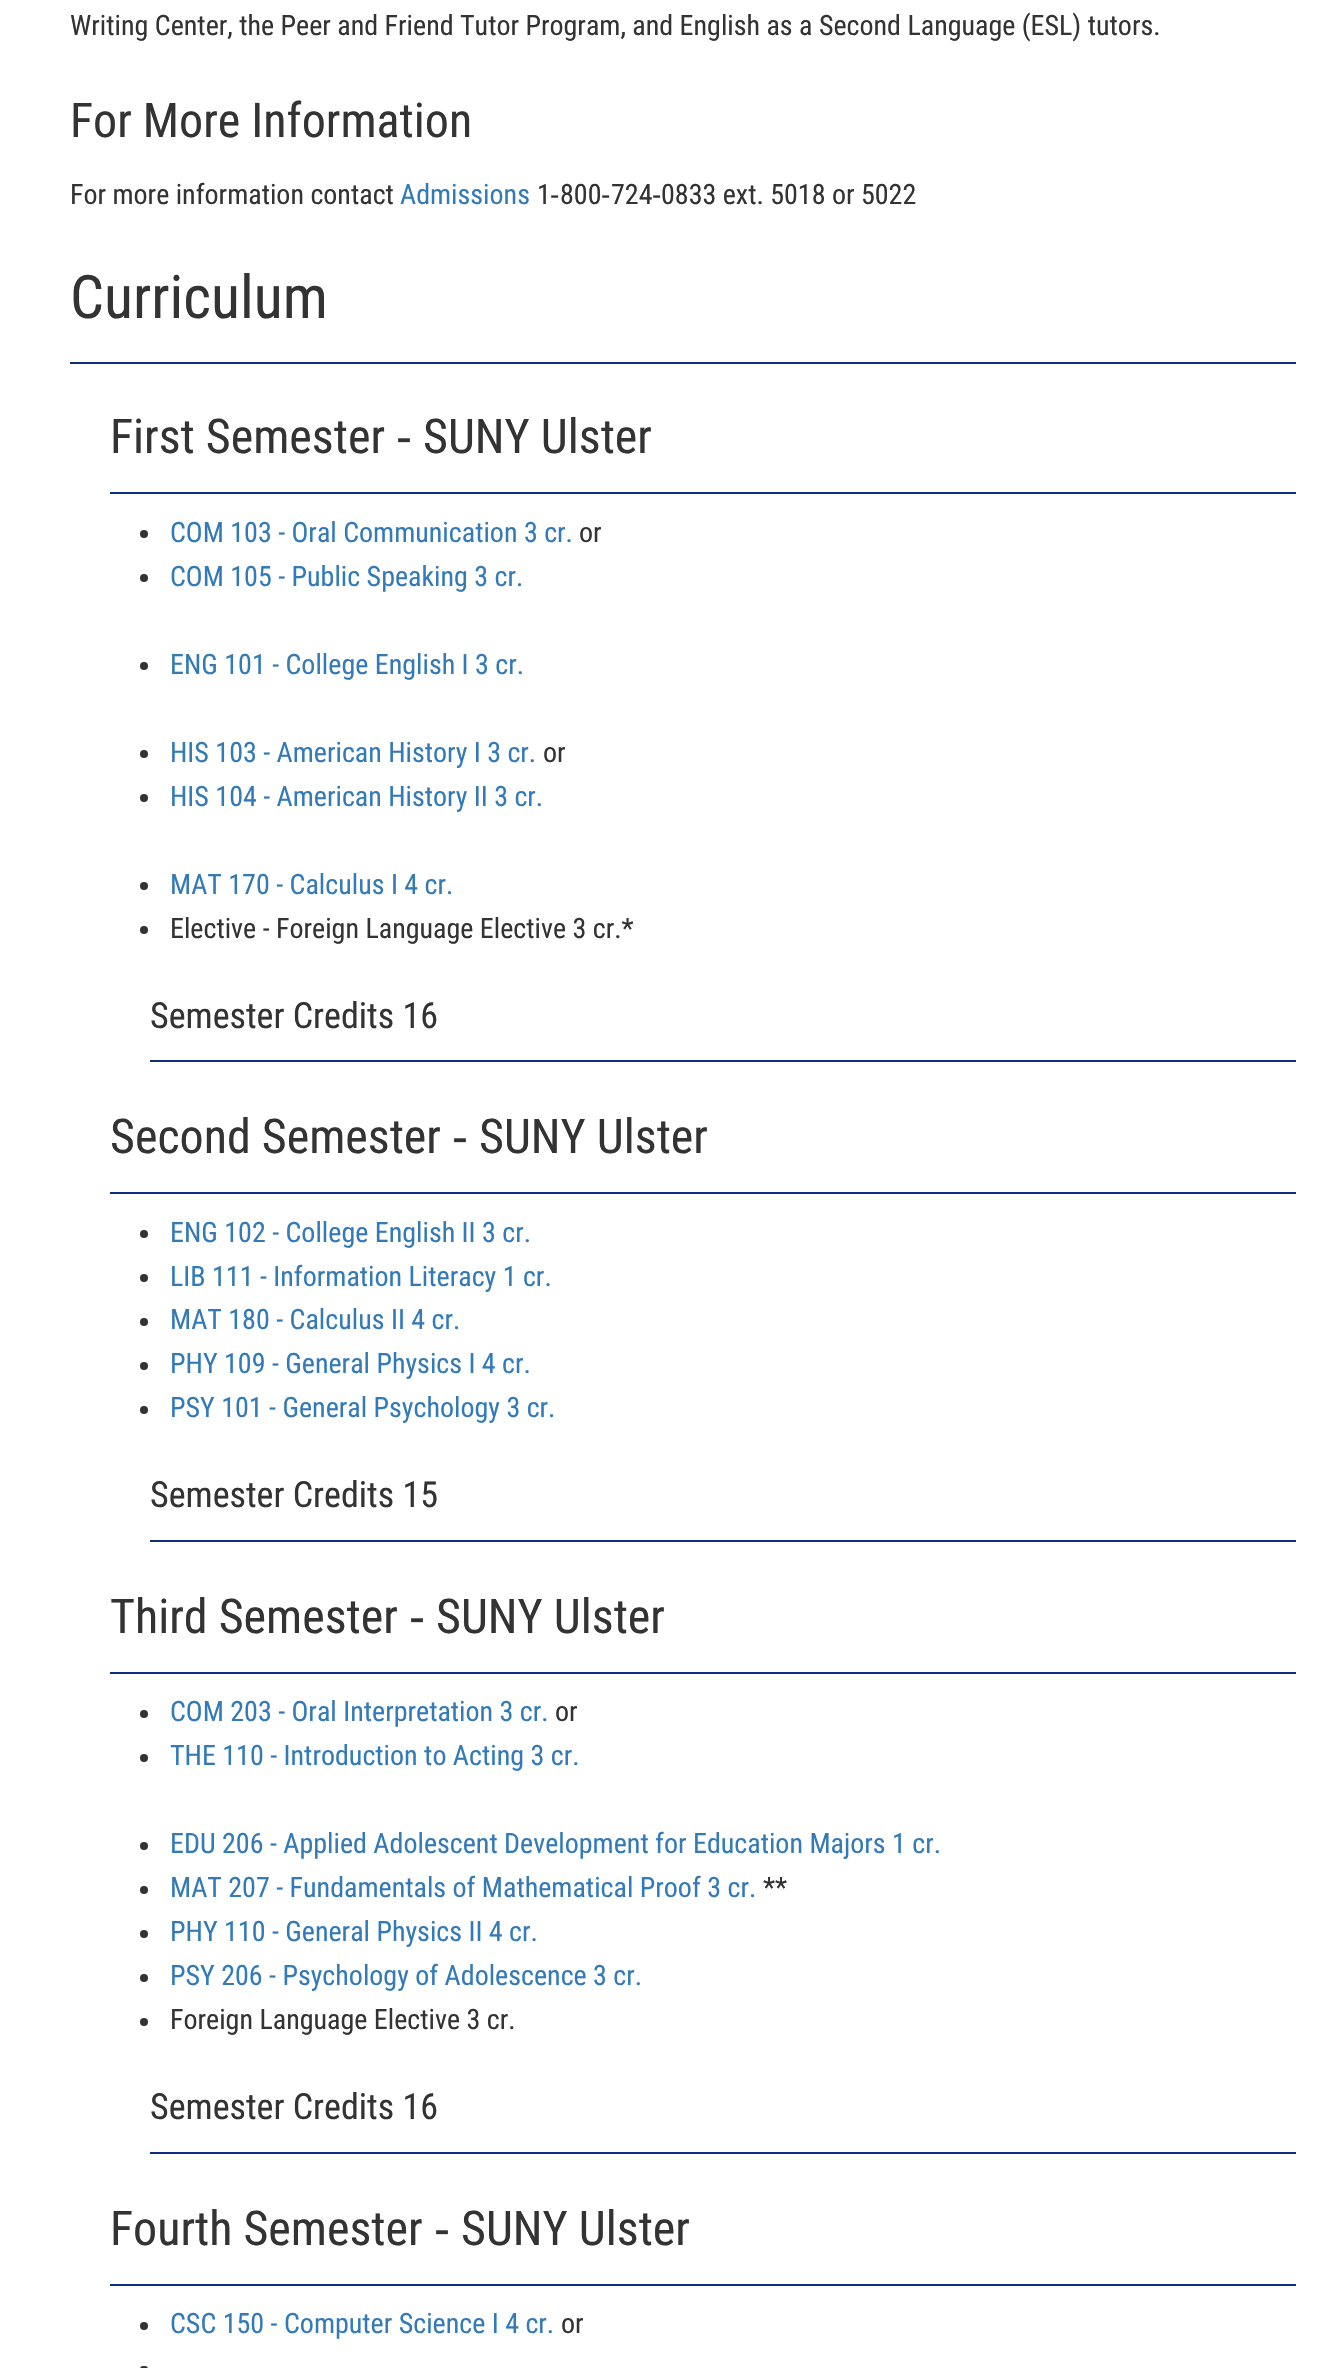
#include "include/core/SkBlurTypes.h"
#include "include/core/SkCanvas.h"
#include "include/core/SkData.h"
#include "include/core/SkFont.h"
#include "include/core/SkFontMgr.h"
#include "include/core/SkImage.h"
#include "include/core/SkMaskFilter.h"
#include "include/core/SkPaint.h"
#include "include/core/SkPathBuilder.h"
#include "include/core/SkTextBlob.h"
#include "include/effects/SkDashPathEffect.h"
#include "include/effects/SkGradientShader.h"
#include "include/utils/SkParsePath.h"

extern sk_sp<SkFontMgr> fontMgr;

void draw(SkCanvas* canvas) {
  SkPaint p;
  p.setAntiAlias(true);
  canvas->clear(SK_ColorWHITE);
  p.setColor(SkColorSetRGB(14, 46, 128));
  canvas->drawRect(SkRect::MakeLTRB(70, 362, 1296, 364), p);
  canvas->drawRect(SkRect::MakeLTRB(110, 492, 1296, 494), p);
  p.setColor(SkColorSetRGB(51, 51, 51));
  canvas->drawCircle(144, 534, 4, p);
  canvas->drawCircle(144, 578, 4, p);
  canvas->drawCircle(144, 666, 4, p);
  canvas->drawCircle(144, 754, 4, p);
  canvas->drawCircle(144, 798, 4, p);
  canvas->drawCircle(144, 886, 4, p);
  canvas->drawCircle(144, 930, 4, p);
  p.setColor(SkColorSetRGB(14, 46, 128));
  canvas->drawRect(SkRect::MakeLTRB(150, 1060, 1296, 1062), p);
  canvas->drawRect(SkRect::MakeLTRB(110, 1192, 1296, 1194), p);
  p.setColor(SkColorSetRGB(51, 51, 51));
  canvas->drawCircle(144, 1234, 4, p);
  canvas->drawCircle(144, 1278, 4, p);
  canvas->drawCircle(144, 1322, 4, p);
  canvas->drawCircle(144, 1366, 4, p);
  canvas->drawCircle(144, 1410, 4, p);
  p.setColor(SkColorSetRGB(14, 46, 128));
  canvas->drawRect(SkRect::MakeLTRB(150, 1540, 1296, 1542), p);
  canvas->drawRect(SkRect::MakeLTRB(110, 1672, 1296, 1674), p);
  p.setColor(SkColorSetRGB(51, 51, 51));
  canvas->drawCircle(144, 1714, 4, p);
  canvas->drawCircle(144, 1758, 4, p);
  canvas->drawCircle(144, 1846, 4, p);
  canvas->drawCircle(144, 1890, 4, p);
  canvas->drawCircle(144, 1934, 4, p);
  canvas->drawCircle(144, 1978, 4, p);
  canvas->drawCircle(144, 2022, 4, p);
  p.setColor(SkColorSetRGB(14, 46, 128));
  canvas->drawRect(SkRect::MakeLTRB(150, 2152, 1296, 2154), p);
  canvas->drawRect(SkRect::MakeLTRB(110, 2284, 1296, 2286), p);
  p.setColor(SkColorSetRGB(51, 51, 51));
  canvas->drawCircle(144, 2326, 4, p);
  canvas->drawRoundRect(SkRect::MakeLTRB(140, 2366, 148, 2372), 4, 4, p);
  SkFont font1(fontMgr->matchFamilyStyle("Roboto Condensed", SkFontStyle::Normal()), 28);
  font1.setSubpixel(true);
  canvas->drawString("Writing Center, the Peer and Friend Tutor Program, and English as a Second Language (ESL) tutors.", 70, 35, font1, p);
  SkFont font2(fontMgr->matchFamilyStyle("Roboto Condensed", SkFontStyle::Normal()), 48);
  font2.setSubpixel(true);
  canvas->drawString("For More Information", 70, 137, font2, p);
  canvas->drawString("For more information contact", 70, 204, font1, p);
  p.setColor(SkColorSetRGB(51, 122, 183));
  canvas->drawString("Admissions", 400, 204, font1, p);
  p.setColor(SkColorSetRGB(51, 51, 51));
  canvas->drawString("1", 537, 204, font1, p);
  SkFont font3(fontMgr->matchFamilyStyle("Liberation Sans", SkFontStyle::Normal()), 28);
  font3.setSubpixel(true);
  canvas->drawString("‐", 550, 204, font3, p);
  canvas->drawString("800", 560, 204, font1, p);
  canvas->drawString("‐", 601, 204, font3, p);
  canvas->drawString("724", 611, 204, font1, p);
  canvas->drawString("‐", 652, 204, font3, p);
  canvas->drawString("0833 ext. 5018 or 5022", 661, 204, font1, p);
  SkFont font4(fontMgr->matchFamilyStyle("Roboto Condensed", SkFontStyle::Normal()), 60);
  font4.setSubpixel(true);
  canvas->drawString("Curriculum", 70, 318, font4, p);
  canvas->drawString("First Semester", 110, 453, font2, p);
  SkFont font5(fontMgr->matchFamilyStyle("Liberation Sans", SkFontStyle::Normal()), 48);
  font5.setSubpixel(true);
  canvas->drawString("‐", 396, 453, font5, p);
  canvas->drawString("SUNY Ulster", 423, 453, font2, p);
  p.setColor(SkColorSetRGB(51, 122, 183));
  canvas->drawString("COM 103 - Oral Communication 3 cr.", 170, 542, font1, p);
  p.setColor(SkColorSetRGB(51, 51, 51));
  canvas->drawString("or", 579, 542, font1, p);
  p.setColor(SkColorSetRGB(51, 122, 183));
  canvas->drawString("COM 105 - Public Speaking 3 cr.", 170, 586, font1, p);
  canvas->drawString("ENG 101 - College English I 3 cr.", 170, 674, font1, p);
  canvas->drawString("HIS 103 - American History I 3 cr.", 170, 762, font1, p);
  p.setColor(SkColorSetRGB(51, 51, 51));
  canvas->drawString("or", 543, 762, font1, p);
  p.setColor(SkColorSetRGB(51, 122, 183));
  canvas->drawString("HIS 104 - American History II 3 cr.", 170, 806, font1, p);
  canvas->drawString("MAT 170 - Calculus I 4 cr.", 170, 894, font1, p);
  p.setColor(SkColorSetRGB(51, 51, 51));
  canvas->drawString("Elective - Foreign Language Elective 3 cr.*", 170, 938, font1, p);
  SkFont font6(fontMgr->matchFamilyStyle("Roboto Condensed", SkFontStyle::Normal()), 36);
  font6.setSubpixel(true);
  canvas->drawString("Semester Credits 16", 150, 1028, font6, p);
  canvas->drawString("Second Semester", 110, 1153, font2, p);
  canvas->drawString("‐", 452, 1153, font5, p);
  canvas->drawString("SUNY Ulster", 479, 1153, font2, p);
  p.setColor(SkColorSetRGB(51, 122, 183));
  canvas->drawString("ENG 102 - College English II 3 cr.", 170, 1242, font1, p);
  canvas->drawString("LIB 111 - Information Literacy 1 cr.", 170, 1286, font1, p);
  canvas->drawString("MAT 180 - Calculus II 4 cr.", 170, 1329, font1, p);
  canvas->drawString("PHY 109 - General Physics I 4 cr.", 170, 1373, font1, p);
  canvas->drawString("PSY 101 - General Psychology 3 cr.", 170, 1417, font1, p);
  p.setColor(SkColorSetRGB(51, 51, 51));
  canvas->drawString("Semester Credits 15", 150, 1507, font6, p);
  canvas->drawString("Third Semester", 110, 1633, font2, p);
  canvas->drawString("‐", 409, 1633, font5, p);
  canvas->drawString("SUNY Ulster", 436, 1633, font2, p);
  p.setColor(SkColorSetRGB(51, 122, 183));
  canvas->drawString("COM 203 - Oral Interpretation 3 cr.", 170, 1721, font1, p);
  p.setColor(SkColorSetRGB(51, 51, 51));
  canvas->drawString("or", 555, 1721, font1, p);
  p.setColor(SkColorSetRGB(51, 122, 183));
  canvas->drawString("THE 110 - Introduction to Acting 3 cr.", 170, 1765, font1, p);
  canvas->drawString("EDU 206 - Applied Adolescent Development for Education Majors 1 cr.", 170, 1853, font1, p);
  canvas->drawString("MAT 207 - Fundamentals of Mathematical Proof 3 cr.", 170, 1897, font1, p);
  p.setColor(SkColorSetRGB(51, 51, 51));
  canvas->drawString("**", 763, 1897, font1, p);
  p.setColor(SkColorSetRGB(51, 122, 183));
  canvas->drawString("PHY 110 - General Physics II 4 cr.", 170, 1941, font1, p);
  canvas->drawString("PSY 206 - Psychology of Adolescence 3 cr.", 170, 1985, font1, p);
  p.setColor(SkColorSetRGB(51, 51, 51));
  canvas->drawString("Foreign Language Elective 3 cr.", 170, 2029, font1, p);
  canvas->drawString("Semester Credits 16", 150, 2119, font6, p);
  canvas->drawString("Fourth Semester", 110, 2245, font2, p);
  canvas->drawString("‐", 434, 2245, font5, p);
  canvas->drawString("SUNY Ulster", 461, 2245, font2, p);
  p.setColor(SkColorSetRGB(51, 122, 183));
  canvas->drawString("CSC 150 - Computer Science I 4 cr.", 170, 2333, font1, p);
  p.setColor(SkColorSetRGB(51, 51, 51));
  canvas->drawString("or", 561, 2333, font1, p);
}
